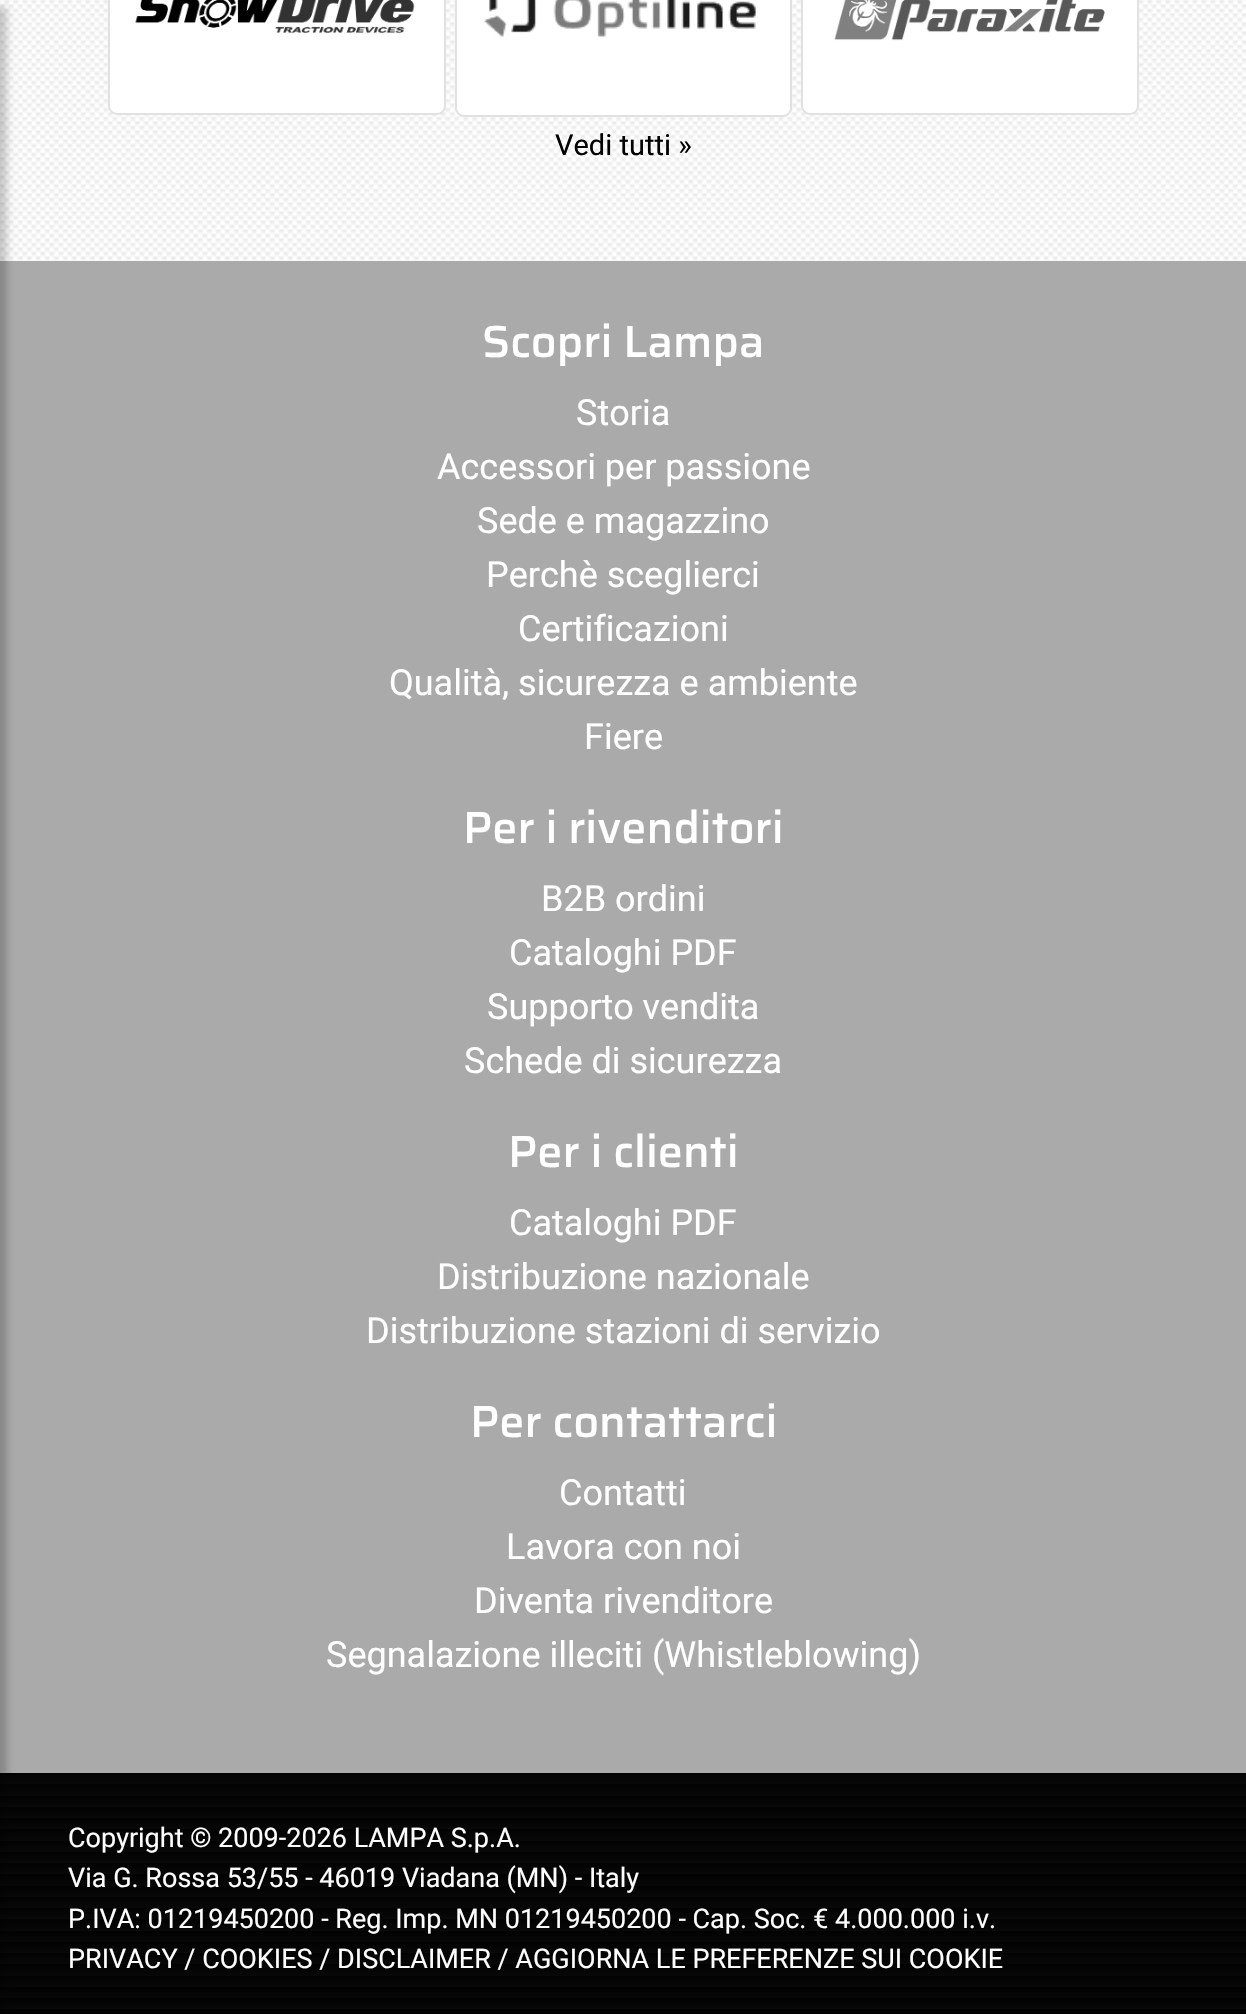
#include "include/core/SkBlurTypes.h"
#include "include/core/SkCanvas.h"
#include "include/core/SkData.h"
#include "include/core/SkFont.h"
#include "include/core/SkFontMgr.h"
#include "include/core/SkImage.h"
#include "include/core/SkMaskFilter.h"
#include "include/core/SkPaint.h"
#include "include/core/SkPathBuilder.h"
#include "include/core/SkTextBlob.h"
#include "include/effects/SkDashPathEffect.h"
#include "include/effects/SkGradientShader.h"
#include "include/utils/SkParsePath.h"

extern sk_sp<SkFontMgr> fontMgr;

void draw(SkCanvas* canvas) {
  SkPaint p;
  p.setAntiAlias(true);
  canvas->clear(SK_ColorWHITE);
  canvas->drawImageRect(SkImages::DeferredFromEncodedData(SkData::MakeFromFileName("images/1.png")), SkRect::MakeLTRB(0, 0, 1246, 261), SkSamplingOptions());
  p.setColor(SkColorSetRGB(170, 170, 170));
  canvas->drawRect(SkRect::MakeLTRB(0, 261, 1246, 1773), p);
  canvas->drawImageRect(SkImages::DeferredFromEncodedData(SkData::MakeFromFileName("images/5.png")), SkRect::MakeLTRB(0, 1773, 1246, 2014), SkSamplingOptions());
  p.setColor(SkColorSetARGB(51, 0, 0, 0));
  p.setMaskFilter(SkMaskFilter::MakeBlur(kNormal_SkBlurStyle, 3.5f));
  canvas->drawRect(SkRect::MakeLTRB(-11, 7, 7, 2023), p);
  p.setMaskFilter(nullptr);
  p.setColor(SK_ColorWHITE);
  canvas->drawRoundRect(SkRect::MakeLTRB(109, -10, 445, 114), 8, 8, p);
  p.setStyle(SkPaint::kStroke_Style);
  p.setStrokeWidth(2);
  p.setColor(SkColorSetRGB(225, 225, 225));
  canvas->drawRoundRect(SkRect::MakeLTRB(109, -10, 445, 114), 8, 8, p);
  p.setStyle(SkPaint::kFill_Style);
  p.setColor(SK_ColorWHITE);
  canvas->drawRoundRect(SkRect::MakeLTRB(456, -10, 791, 116), 8, 8, p);
  p.setStyle(SkPaint::kStroke_Style);
  p.setColor(SkColorSetRGB(225, 225, 225));
  canvas->drawRoundRect(SkRect::MakeLTRB(456, -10, 791, 116), 8, 8, p);
  p.setStyle(SkPaint::kFill_Style);
  p.setColor(SK_ColorWHITE);
  canvas->drawRoundRect(SkRect::MakeLTRB(802, -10, 1138, 114), 8, 8, p);
  p.setStyle(SkPaint::kStroke_Style);
  p.setColor(SkColorSetRGB(225, 225, 225));
  canvas->drawRoundRect(SkRect::MakeLTRB(802, -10, 1138, 114), 8, 8, p);
  canvas->drawImageRect(SkImages::DeferredFromEncodedData(SkData::MakeFromFileName("images/2.png")), SkRect::MakeLTRB(135, 0, 415, 34), SkSamplingOptions());
  canvas->drawImageRect(SkImages::DeferredFromEncodedData(SkData::MakeFromFileName("images/3.png")), SkRect::MakeLTRB(484, 0, 757, 37), SkSamplingOptions());
  canvas->drawImageRect(SkImages::DeferredFromEncodedData(SkData::MakeFromFileName("images/4.png")), SkRect::MakeLTRB(834, 0, 1105, 41), SkSamplingOptions());
  SkFont font1(fontMgr->matchFamilyStyle("Roboto", SkFontStyle::Normal()), 29);
  font1.setSubpixel(true);
  p.setStyle(SkPaint::kFill_Style);
  p.setColor(SK_ColorBLACK);
  canvas->drawString("Vedi tutti »", 555, 155, font1, p);
  SkFont font2(fontMgr->matchFamilyStyle("Saira", SkFontStyle(500, SkFontStyle::kNormal_Width, SkFontStyle::kUpright_Slant)), 45);
  font2.setSubpixel(true);
  p.setColor(SK_ColorWHITE);
  canvas->drawString("Scopri Lampa", 482, 357, font2, p);
  SkFont font3(fontMgr->matchFamilyStyle("Roboto", SkFontStyle::Normal()), 36);
  font3.setSubpixel(true);
  canvas->drawString("Storia", 576, 425, font3, p);
  canvas->drawString("Accessori per passione", 437, 479, font3, p);
  canvas->drawString("Sede e magazzino", 477, 533, font3, p);
  canvas->drawString("Perchè sceglierci", 486, 587, font3, p);
  canvas->drawString("Certificazioni", 518, 641, font3, p);
  canvas->drawString("Qualità, sicurezza e ambiente", 389, 695, font3, p);
  canvas->drawString("Fiere", 584, 749, font3, p);
  canvas->drawString("Per i rivenditori", 463, 843, font2, p);
  canvas->drawString("B2B ordini", 541, 911, font3, p);
  canvas->drawString("Cataloghi PDF", 509, 965, font3, p);
  canvas->drawString("Supporto vendita", 487, 1019, font3, p);
  canvas->drawString("Schede di sicurezza", 464, 1073, font3, p);
  canvas->drawString("Per i clienti", 508, 1167, font2, p);
  canvas->drawString("Cataloghi PDF", 509, 1235, font3, p);
  canvas->drawString("Distribuzione nazionale", 437, 1289, font3, p);
  canvas->drawString("Distribuzione stazioni di servizio", 366, 1343, font3, p);
  canvas->drawString("Per contattarci", 470, 1437, font2, p);
  canvas->drawString("Contatti", 559, 1505, font3, p);
  canvas->drawString("Lavora con noi", 506, 1559, font3, p);
  canvas->drawString("Diventa rivenditore", 474, 1613, font3, p);
  canvas->drawString("Segnalazione illeciti (Whistleblowing)", 326, 1667, font3, p);
  SkFont font4(fontMgr->matchFamilyStyle("Roboto", SkFontStyle::Normal()), 27);
  font4.setSubpixel(true);
  canvas->drawString("Copyright © 2009-2026 LAMPA S.p.A.", 68, 1847, font4, p);
  canvas->drawString("Via G. Rossa 53/55 - 46019 Viadana (MN) - Italy", 68, 1887, font4, p);
  canvas->drawString("P.IVA: 01219450200 - Reg. Imp. MN 01219450200 - Cap. Soc. € 4.000.000 i.v.", 68, 1928, font4, p);
  canvas->drawString("PRIVACY / COOKIES / DISCLAIMER / AGGIORNA LE PREFERENZE SUI COOKIE", 68, 1968, font4, p);
}
